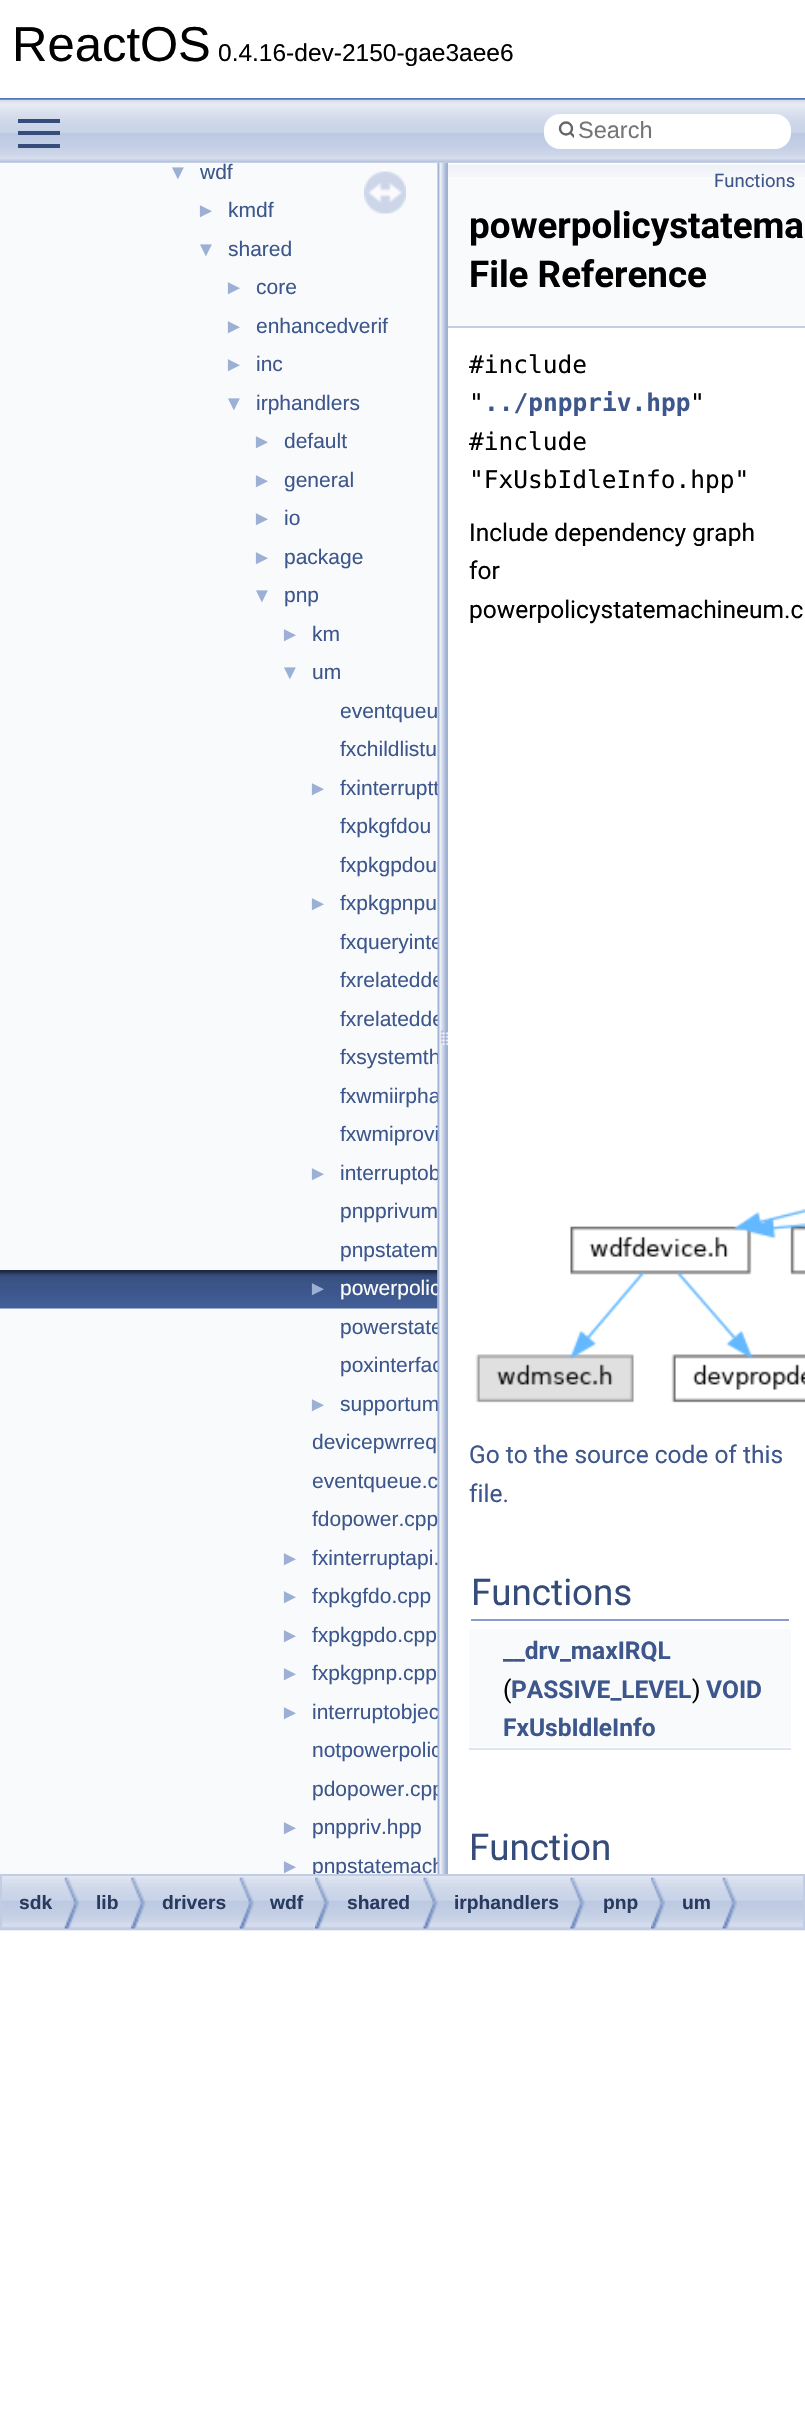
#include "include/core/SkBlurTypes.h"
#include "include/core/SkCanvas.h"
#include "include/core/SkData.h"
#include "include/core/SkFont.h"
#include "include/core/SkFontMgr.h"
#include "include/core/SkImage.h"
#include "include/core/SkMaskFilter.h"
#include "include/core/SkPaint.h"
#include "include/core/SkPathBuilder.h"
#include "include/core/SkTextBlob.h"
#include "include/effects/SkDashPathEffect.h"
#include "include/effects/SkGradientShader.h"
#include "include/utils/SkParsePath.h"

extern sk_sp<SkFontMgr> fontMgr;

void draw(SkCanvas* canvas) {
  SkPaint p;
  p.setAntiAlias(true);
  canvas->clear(SK_ColorWHITE);
  p.setColor(SkColorSetRGB(83, 115, 180));
  canvas->drawRect(SkRect::MakeLTRB(0, 98, 805, 100), p);
  p.setColor(SkColorSetRGB(249, 250, 252));
  canvas->drawRect(SkRect::MakeLTRB(0, 163, 438, 1874), p);
  canvas->drawImageRect(SkImages::DeferredFromEncodedData(SkData::MakeFromFileName("images/2.png")), SkRect::MakeLTRB(0, 1270, 438, 1309), SkSamplingOptions());
  canvas->drawImageRect(SkImages::DeferredFromEncodedData(SkData::MakeFromFileName("images/3.png")), SkRect::MakeLTRB(364, 171, 406, 214), SkSamplingOptions());
  canvas->drawRect(SkRect::MakeLTRB(448, 177, 805, 326), p);
  canvas->drawImageRect(SkImages::DeferredFromEncodedData(SkData::MakeFromFileName("images/5.png")), SkRect::MakeLTRB(448, 163, 805, 177), SkSamplingOptions());
  p.setColor(SkColorSetRGB(196, 207, 229));
  canvas->drawRect(SkRect::MakeLTRB(448, 326, 805, 328), p);
  canvas->drawImageRect(SkImages::DeferredFromEncodedData(SkData::MakeFromFileName("images/6.png")), SkRect::MakeLTRB(475, 1208, 805, 1403), SkSamplingOptions());
  p.setColor(SkColorSetRGB(135, 158, 203));
  canvas->drawRect(SkRect::MakeLTRB(471, 1619, 789, 1621), p);
  p.setColor(SkColorSetRGB(249, 250, 252));
  canvas->drawRect(SkRect::MakeLTRB(469, 1629, 791, 1747), p);
  p.setColor(SkColorSetRGB(222, 228, 240));
  canvas->drawRect(SkRect::MakeLTRB(469, 1748, 791, 1750), p);
  canvas->drawImageRect(SkImages::DeferredFromEncodedData(SkData::MakeFromFileName("images/7.png")), SkRect::MakeLTRB(0, 1876, 805, 1931), SkSamplingOptions());
  p.setStyle(SkPaint::kStroke_Style);
  p.setStrokeWidth(2);
  p.setColor(SkColorSetRGB(194, 205, 228));
  canvas->drawRect(SkRect::MakeLTRB(1, 1875, 804, 1929), p);
  canvas->drawImageRect(SkImages::DeferredFromEncodedData(SkData::MakeFromFileName("images/8.png")), SkRect::MakeLTRB(64, 1877, 79, 1929), SkSamplingOptions());
  canvas->drawImageRect(SkImages::DeferredFromEncodedData(SkData::MakeFromFileName("images/9.png")), SkRect::MakeLTRB(131, 1877, 146, 1929), SkSamplingOptions());
  canvas->drawImageRect(SkImages::DeferredFromEncodedData(SkData::MakeFromFileName("images/8.png")), SkRect::MakeLTRB(239, 1877, 254, 1929), SkSamplingOptions());
  canvas->drawImageRect(SkImages::DeferredFromEncodedData(SkData::MakeFromFileName("images/10.png")), SkRect::MakeLTRB(315, 1877, 329, 1929), SkSamplingOptions());
  canvas->drawImageRect(SkImages::DeferredFromEncodedData(SkData::MakeFromFileName("images/11.png")), SkRect::MakeLTRB(423, 1877, 438, 1929), SkSamplingOptions());
  canvas->drawImageRect(SkImages::DeferredFromEncodedData(SkData::MakeFromFileName("images/12.png")), SkRect::MakeLTRB(570, 1877, 585, 1929), SkSamplingOptions());
  canvas->drawImageRect(SkImages::DeferredFromEncodedData(SkData::MakeFromFileName("images/13.png")), SkRect::MakeLTRB(651, 1877, 665, 1929), SkSamplingOptions());
  canvas->drawImageRect(SkImages::DeferredFromEncodedData(SkData::MakeFromFileName("images/14.png")), SkRect::MakeLTRB(722, 1877, 737, 1929), SkSamplingOptions());
  SkFont font1(fontMgr->matchFamilyStyle("Liberation Sans", SkFontStyle::Normal()), 49);
  font1.setSubpixel(true);
  p.setStyle(SkPaint::kFill_Style);
  p.setColor(SK_ColorBLACK);
  canvas->drawString("ReactOS", 12, 61, font1, p);
  SkFont font2(fontMgr->matchFamilyStyle("Liberation Sans", SkFontStyle::Normal()), 24.5f);
  font2.setSubpixel(true);
  canvas->drawString("0.4.16-dev-2150-gae3aee6", 218, 61, font2, p);
  SkFont font3(fontMgr->matchFamilyStyle("Liberation Sans", SkFontStyle::Normal()), 20);
  font3.setSubpixel(true);
  p.setColor(SkColorSetRGB(156, 175, 212));
  canvas->drawString("▼", 168, 179, font3, p);
  SkFont font4(fontMgr->matchFamilyStyle("Liberation Sans", SkFontStyle::Normal()), 21);
  font4.setSubpixel(true);
  p.setColor(SkColorSetRGB(61, 87, 140));
  canvas->drawString("wdf", 200, 179, font4, p);
  p.setColor(SkColorSetRGB(156, 175, 212));
  canvas->drawString("►", 196, 217, font3, p);
  p.setColor(SkColorSetRGB(61, 87, 140));
  canvas->drawString("kmdf", 228, 217, font4, p);
  p.setColor(SkColorSetRGB(156, 175, 212));
  canvas->drawString("▼", 196, 256, font3, p);
  p.setColor(SkColorSetRGB(61, 87, 140));
  canvas->drawString("shared", 228, 256, font4, p);
  p.setColor(SkColorSetRGB(156, 175, 212));
  canvas->drawString("►", 224, 294, font3, p);
  p.setColor(SkColorSetRGB(61, 87, 140));
  canvas->drawString("core", 256, 294, font4, p);
  p.setColor(SkColorSetRGB(156, 175, 212));
  canvas->drawString("►", 224, 333, font3, p);
  p.setColor(SkColorSetRGB(61, 87, 140));
  canvas->drawString("enhancedverif", 256, 333, font4, p);
  p.setColor(SkColorSetRGB(156, 175, 212));
  canvas->drawString("►", 224, 371, font3, p);
  p.setColor(SkColorSetRGB(61, 87, 140));
  canvas->drawString("inc", 256, 371, font4, p);
  p.setColor(SkColorSetRGB(156, 175, 212));
  canvas->drawString("▼", 224, 410, font3, p);
  p.setColor(SkColorSetRGB(61, 87, 140));
  canvas->drawString("irphandlers", 256, 410, font4, p);
  p.setColor(SkColorSetRGB(156, 175, 212));
  canvas->drawString("►", 252, 448, font3, p);
  p.setColor(SkColorSetRGB(61, 87, 140));
  canvas->drawString("default", 284, 448, font4, p);
  p.setColor(SkColorSetRGB(156, 175, 212));
  canvas->drawString("►", 252, 487, font3, p);
  p.setColor(SkColorSetRGB(61, 87, 140));
  canvas->drawString("general", 284, 487, font4, p);
  p.setColor(SkColorSetRGB(156, 175, 212));
  canvas->drawString("►", 252, 525, font3, p);
  p.setColor(SkColorSetRGB(61, 87, 140));
  canvas->drawString("io", 284, 525, font4, p);
  p.setColor(SkColorSetRGB(156, 175, 212));
  canvas->drawString("►", 252, 564, font3, p);
  p.setColor(SkColorSetRGB(61, 87, 140));
  canvas->drawString("package", 284, 564, font4, p);
  p.setColor(SkColorSetRGB(156, 175, 212));
  canvas->drawString("▼", 252, 602, font3, p);
  p.setColor(SkColorSetRGB(61, 87, 140));
  canvas->drawString("pnp", 284, 602, font4, p);
  p.setColor(SkColorSetRGB(156, 175, 212));
  canvas->drawString("►", 280, 641, font3, p);
  p.setColor(SkColorSetRGB(61, 87, 140));
  canvas->drawString("km", 312, 641, font4, p);
  p.setColor(SkColorSetRGB(156, 175, 212));
  canvas->drawString("▼", 280, 679, font3, p);
  p.setColor(SkColorSetRGB(61, 87, 140));
  canvas->drawString("um", 312, 679, font4, p);
  canvas->drawString("eventqueu", 340, 718, font4, p);
  canvas->drawString("fxchildlistu", 340, 756, font4, p);
  p.setColor(SkColorSetRGB(156, 175, 212));
  canvas->drawString("►", 308, 795, font3, p);
  p.setColor(SkColorSetRGB(61, 87, 140));
  canvas->drawString("fxinterruptt", 340, 795, font4, p);
  canvas->drawString("fxpkgfdou", 340, 833, font4, p);
  canvas->drawString("fxpkgpdou", 340, 872, font4, p);
  p.setColor(SkColorSetRGB(156, 175, 212));
  canvas->drawString("►", 308, 910, font3, p);
  p.setColor(SkColorSetRGB(61, 87, 140));
  canvas->drawString("fxpkgpnpu", 340, 910, font4, p);
  canvas->drawString("fxqueryinte", 340, 949, font4, p);
  canvas->drawString("fxrelatedde", 340, 987, font4, p);
  canvas->drawString("fxrelatedde", 340, 1026, font4, p);
  canvas->drawString("fxsystemth", 340, 1064, font4, p);
  canvas->drawString("fxwmiirpha", 340, 1103, font4, p);
  canvas->drawString("fxwmiprovi", 340, 1141, font4, p);
  p.setColor(SkColorSetRGB(156, 175, 212));
  canvas->drawString("►", 308, 1180, font3, p);
  p.setColor(SkColorSetRGB(61, 87, 140));
  canvas->drawString("interruptob", 340, 1180, font4, p);
  canvas->drawString("pnpprivum", 340, 1218, font4, p);
  canvas->drawString("pnpstatem", 340, 1257, font4, p);
  p.setColor(SkColorSetRGB(156, 175, 212));
  canvas->drawString("►", 308, 1295, font3, p);
  p.setColor(SK_ColorWHITE);
  canvas->drawString("powerpolic", 340, 1295, font4, p);
  p.setColor(SkColorSetRGB(61, 87, 140));
  canvas->drawString("powerstate", 340, 1334, font4, p);
  canvas->drawString("poxinterfac", 340, 1372, font4, p);
  p.setColor(SkColorSetRGB(156, 175, 212));
  canvas->drawString("►", 308, 1411, font3, p);
  p.setColor(SkColorSetRGB(61, 87, 140));
  canvas->drawString("supportum", 340, 1411, font4, p);
  canvas->drawString("devicepwrreq", 312, 1449, font4, p);
  canvas->drawString("eventqueue.c", 312, 1488, font4, p);
  canvas->drawString("fdopower.cpp", 312, 1526, font4, p);
  p.setColor(SkColorSetRGB(156, 175, 212));
  canvas->drawString("►", 280, 1565, font3, p);
  p.setColor(SkColorSetRGB(61, 87, 140));
  canvas->drawString("fxinterruptapi.", 312, 1565, font4, p);
  p.setColor(SkColorSetRGB(156, 175, 212));
  canvas->drawString("►", 280, 1603, font3, p);
  p.setColor(SkColorSetRGB(61, 87, 140));
  canvas->drawString("fxpkgfdo.cpp", 312, 1603, font4, p);
  p.setColor(SkColorSetRGB(156, 175, 212));
  canvas->drawString("►", 280, 1642, font3, p);
  p.setColor(SkColorSetRGB(61, 87, 140));
  canvas->drawString("fxpkgpdo.cpp", 312, 1642, font4, p);
  p.setColor(SkColorSetRGB(156, 175, 212));
  canvas->drawString("►", 280, 1680, font3, p);
  p.setColor(SkColorSetRGB(61, 87, 140));
  canvas->drawString("fxpkgpnp.cpp", 312, 1680, font4, p);
  p.setColor(SkColorSetRGB(156, 175, 212));
  canvas->drawString("►", 280, 1719, font3, p);
  p.setColor(SkColorSetRGB(61, 87, 140));
  canvas->drawString("interruptobjec", 312, 1719, font4, p);
  canvas->drawString("notpowerpolic", 312, 1757, font4, p);
  canvas->drawString("pdopower.cpp", 312, 1796, font4, p);
  p.setColor(SkColorSetRGB(156, 175, 212));
  canvas->drawString("►", 280, 1834, font3, p);
  p.setColor(SkColorSetRGB(61, 87, 140));
  canvas->drawString("pnppriv.hpp", 312, 1834, font4, p);
  p.setColor(SkColorSetRGB(156, 175, 212));
  canvas->drawString("►", 280, 1873, font3, p);
  canvas->save();
  canvas->clipRect(SkRect::MakeLTRB(0, 163, 438, 1874));
  p.setColor(SkColorSetRGB(61, 87, 140));
  canvas->drawString("pnpstatemach", 312, 1873, font4, p);
  canvas->restore();
  canvas->drawImageRect(SkImages::DeferredFromEncodedData(SkData::MakeFromFileName("images/4.png")), SkRect::MakeLTRB(437, 162, 448, 1874), SkSamplingOptions());
  canvas->drawImageRect(SkImages::DeferredFromEncodedData(SkData::MakeFromFileName("images/1.png")), SkRect::MakeLTRB(0, 99, 805, 163), SkSamplingOptions());
  p.setColor(SK_ColorWHITE);
  canvas->drawRoundRect(SkRect::MakeLTRB(544, 114, 791, 149), 16, 16, p);
  SkFont font5(fontMgr->matchFamilyStyle("Liberation Sans", SkFontStyle::Normal()), 23.5f);
  font5.setSubpixel(true);
  p.setColor(SkColorSetRGB(117, 117, 117));
  canvas->drawString("Search", 578, 138, font5, p);
  p.setStyle(SkPaint::kStroke_Style);
  p.setStrokeWidth(2.4f);
  p.setColor(SkColorSetRGB(101, 101, 101));
  canvas->drawCircle(566, 128.5f, 6, p);
  canvas->save();
  canvas->clipRect(SkRect::MakeLTRB(557, 114, 574, 147));
  p.setStrokeCap(SkPaint::kRound_Cap);
  canvas->drawPath(SkPathBuilder().moveTo(570.5f, 133).lineTo(575.5f, 138).detach(), p);
  canvas->restore();
  p.setStyle(SkPaint::kFill_Style);
  p.setColor(SkColorSetRGB(54, 77, 124));
  canvas->drawRect(SkRect::MakeLTRB(18, 144, 60, 148), p);
  canvas->drawRect(SkRect::MakeLTRB(18, 119, 60, 123), p);
  canvas->drawRect(SkRect::MakeLTRB(18, 131, 60, 135), p);
  SkFont font6(fontMgr->matchFamilyStyle("Roboto", SkFontStyle::Normal()), 18.5f);
  font6.setSubpixel(true);
  p.setColor(SkColorSetRGB(61, 87, 140));
  canvas->drawString("Functions", 714, 187, font6, p);
  SkFont font7(fontMgr->matchFamilyStyle("Roboto", SkFontStyle::Bold()), 36.75f);
  font7.setSubpixel(true);
  p.setColor(SK_ColorBLACK);
  canvas->drawString("powerpolicystatema", 469, 238, font7, p);
  canvas->drawString("File Reference", 469, 287, font7, p);
  SkFont font8(fontMgr->matchFamilyStyle("DejaVu Sans Mono", SkFontStyle::Normal()), 24.5f);
  font8.setSubpixel(true);
  canvas->drawString("#include", 469, 373, font8, p);
  canvas->drawString("\"", 469, 411, font8, p);
  SkFont font9(fontMgr->matchFamilyStyle("DejaVu Sans Mono", SkFontStyle::Bold()), 24.5f);
  font9.setSubpixel(true);
  p.setColor(SkColorSetRGB(61, 87, 140));
  canvas->drawString("../pnppriv.hpp", 484, 411, font9, p);
  p.setColor(SK_ColorBLACK);
  canvas->drawString("\"", 690, 411, font8, p);
  canvas->drawString("#include", 469, 450, font8, p);
  canvas->drawString("\"FxUsbIdleInfo.hpp\"", 469, 488, font8, p);
  SkFont font10(fontMgr->matchFamilyStyle("Roboto", SkFontStyle::Normal()), 24.5f);
  font10.setSubpixel(true);
  canvas->drawString("Include dependency graph", 469, 541, font10, p);
  canvas->drawString("for", 469, 579, font10, p);
  canvas->drawString("powerpolicystatemachineum.c", 469, 618, font10, p);
  p.setColor(SkColorSetRGB(61, 87, 140));
  canvas->drawString("Go to the source code of this", 469, 1463, font10, p);
  canvas->drawString("file.", 469, 1502, font10, p);
  SkFont font11(fontMgr->matchFamilyStyle("Roboto", SkFontStyle::Normal()), 36.75f);
  font11.setSubpixel(true);
  p.setColor(SkColorSetRGB(53, 76, 123));
  canvas->drawString("Functions", 471, 1605, font11, p);
  SkFont font12(fontMgr->matchFamilyStyle("Roboto", SkFontStyle::Bold()), 24.5f);
  font12.setSubpixel(true);
  p.setColor(SkColorSetRGB(61, 87, 140));
  canvas->drawString("__drv_maxIRQL", 503, 1659, font12, p);
  p.setColor(SK_ColorBLACK);
  canvas->drawString("(", 503, 1698, font10, p);
  p.setColor(SkColorSetRGB(61, 87, 140));
  canvas->drawString("PASSIVE_LEVEL", 511, 1698, font12, p);
  p.setColor(SK_ColorBLACK);
  canvas->drawString(")", 692, 1698, font10, p);
  p.setColor(SkColorSetRGB(61, 87, 140));
  canvas->drawString("VOID", 706, 1698, font12, p);
  canvas->drawString("FxUsbIdleInfo", 503, 1736, font12, p);
  p.setColor(SkColorSetRGB(53, 76, 123));
  canvas->drawString("Function", 469, 1860, font11, p);
  SkFont font13(fontMgr->matchFamilyStyle("Liberation Sans", SkFontStyle::Bold()), 19.25f);
  font13.setSubpixel(true);
  p.setColor(SkColorSetRGB(40, 58, 93));
  canvas->drawString("sdk", 19, 1909, font13, p);
  canvas->drawString("lib", 96, 1909, font13, p);
  canvas->drawString("drivers", 162, 1909, font13, p);
  canvas->drawString("wdf", 270, 1909, font13, p);
  canvas->drawString("shared", 347, 1909, font13, p);
  canvas->drawString("irphandlers", 454, 1909, font13, p);
  canvas->drawString("pnp", 603, 1909, font13, p);
  canvas->drawString("um", 682, 1909, font13, p);
}
